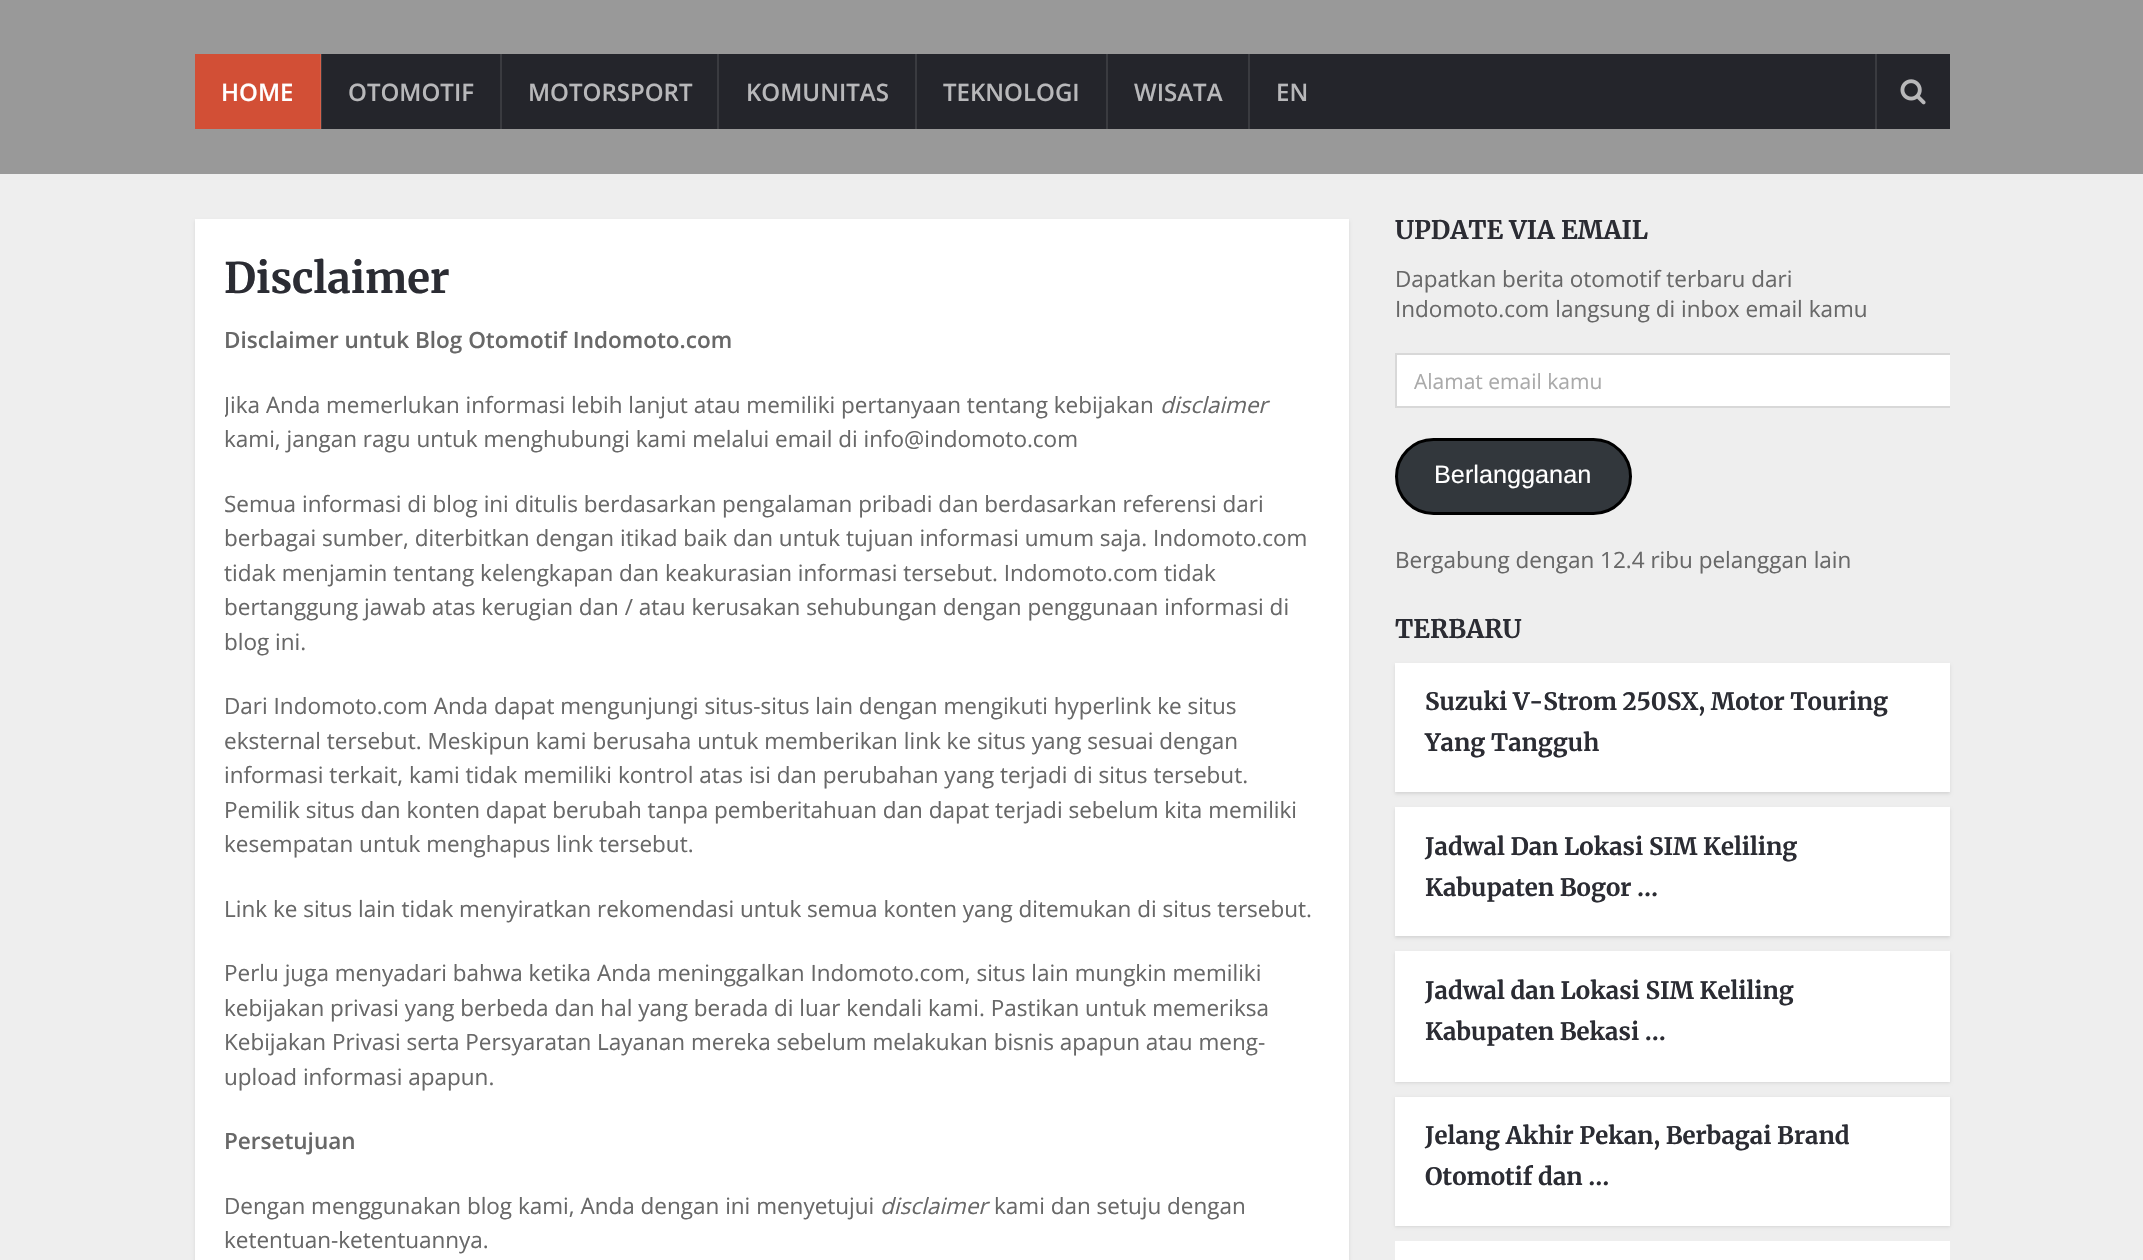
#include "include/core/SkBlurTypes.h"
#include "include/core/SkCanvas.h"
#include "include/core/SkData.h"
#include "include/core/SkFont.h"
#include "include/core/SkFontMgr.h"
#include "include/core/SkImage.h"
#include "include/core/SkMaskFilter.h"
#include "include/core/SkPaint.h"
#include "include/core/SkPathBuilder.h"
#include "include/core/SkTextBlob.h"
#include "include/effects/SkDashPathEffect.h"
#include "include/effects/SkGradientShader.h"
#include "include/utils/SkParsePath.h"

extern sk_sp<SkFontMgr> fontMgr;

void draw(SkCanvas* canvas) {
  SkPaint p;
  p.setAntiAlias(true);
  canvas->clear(SkColorSetRGB(238, 238, 238));
  p.setColor(SkColorSetRGB(153, 153, 153));
  canvas->drawRect(SkRect::MakeLTRB(0, 0, 2143, 174), p);
  p.setColor(SkColorSetRGB(36, 37, 43));
  canvas->drawRect(SkRect::MakeLTRB(322, 54, 1950, 129), p);
  p.setColor(SkColorSetRGB(58, 59, 64));
  canvas->drawRect(SkRect::MakeLTRB(321, 54, 322, 129), p);
  p.setColor(SkColorSetRGB(210, 79, 54));
  canvas->drawRect(SkRect::MakeLTRB(195, 54, 320, 129), p);
  p.setColor(SkColorSetRGB(215, 97, 74));
  canvas->drawRect(SkRect::MakeLTRB(320, 54, 321, 129), p);
  p.setColor(SkColorSetRGB(58, 59, 64));
  canvas->drawRect(SkRect::MakeLTRB(500, 54, 502, 129), p);
  canvas->drawRect(SkRect::MakeLTRB(717, 54, 719, 129), p);
  canvas->drawRect(SkRect::MakeLTRB(915, 54, 917, 129), p);
  canvas->drawRect(SkRect::MakeLTRB(1106, 54, 1108, 129), p);
  canvas->drawRect(SkRect::MakeLTRB(1248, 54, 1250, 129), p);
  canvas->drawRect(SkRect::MakeLTRB(1875, 54, 1877, 129), p);
  canvas->drawImageRect(SkImages::DeferredFromEncodedData(SkData::MakeFromFileName("images/1.png")), SkRect::MakeLTRB(1900, 79, 1926, 105), SkSamplingOptions());
  p.setColor(SkColorSetARGB(26, 0, 0, 0));
  p.setMaskFilter(SkMaskFilter::MakeBlur(kNormal_SkBlurStyle, 1.5f));
  canvas->drawRect(SkRect::MakeLTRB(195, 221, 1349, 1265), p);
  p.setMaskFilter(nullptr);
  p.setColor(SK_ColorWHITE);
  canvas->drawRect(SkRect::MakeLTRB(195, 219, 1349, 1260), p);
  canvas->drawRect(SkRect::MakeLTRB(1397, 355, 1950, 406), p);
  canvas->save();
  canvas->clipRect(SkRect::MakeLTRB(1395, 216, 1950, 575));
  p.setStyle(SkPaint::kStroke_Style);
  p.setStrokeWidth(2);
  p.setColor(SkColorSetRGB(216, 216, 216));
  canvas->drawRect(SkRect::MakeLTRB(1396, 354, 1960, 407), p);
  canvas->restore();
  p.setStyle(SkPaint::kFill_Style);
  p.setColor(SkColorSetRGB(50, 55, 60));
  canvas->drawRoundRect(SkRect::MakeLTRB(1396.5f, 439.5f, 1630.5f, 513.5f), 37, 37, p);
  p.setStyle(SkPaint::kStroke_Style);
  p.setStrokeWidth(3);
  p.setColor(SK_ColorBLACK);
  canvas->drawRoundRect(SkRect::MakeLTRB(1396.5f, 439.5f, 1630.5f, 513.5f), 37, 37, p);
  p.setStyle(SkPaint::kFill_Style);
  p.setColor(SkColorSetARGB(26, 0, 0, 0));
  p.setMaskFilter(SkMaskFilter::MakeBlur(kNormal_SkBlurStyle, 1.5f));
  canvas->drawRect(SkRect::MakeLTRB(1395, 665, 1950, 794), p);
  p.setMaskFilter(nullptr);
  p.setColor(SK_ColorWHITE);
  canvas->drawRect(SkRect::MakeLTRB(1395, 663, 1950, 792), p);
  p.setColor(SkColorSetARGB(26, 0, 0, 0));
  p.setMaskFilter(SkMaskFilter::MakeBlur(kNormal_SkBlurStyle, 1.5f));
  canvas->drawRect(SkRect::MakeLTRB(1395, 809, 1950, 938), p);
  p.setMaskFilter(nullptr);
  p.setColor(SK_ColorWHITE);
  canvas->drawRect(SkRect::MakeLTRB(1395, 807, 1950, 936), p);
  p.setColor(SkColorSetARGB(26, 0, 0, 0));
  p.setMaskFilter(SkMaskFilter::MakeBlur(kNormal_SkBlurStyle, 1.5f));
  canvas->drawRect(SkRect::MakeLTRB(1395, 953, 1950, 1083), p);
  p.setMaskFilter(nullptr);
  p.setColor(SK_ColorWHITE);
  canvas->drawRect(SkRect::MakeLTRB(1395, 951, 1950, 1082), p);
  p.setColor(SkColorSetARGB(26, 0, 0, 0));
  p.setMaskFilter(SkMaskFilter::MakeBlur(kNormal_SkBlurStyle, 1.5f));
  canvas->drawRect(SkRect::MakeLTRB(1395, 1098, 1950, 1227), p);
  p.setMaskFilter(nullptr);
  p.setColor(SK_ColorWHITE);
  canvas->drawRect(SkRect::MakeLTRB(1395, 1097, 1950, 1226), p);
  canvas->drawRect(SkRect::MakeLTRB(1395, 1241, 1950, 1260), p);
  SkFont font1(fontMgr->matchFamilyStyle("Open Sans", SkFontStyle(600, SkFontStyle::kNormal_Width, SkFontStyle::kUpright_Slant)), 24);
  font1.setSubpixel(true);
  canvas->drawString("HOME", 221, 101, font1, p);
  p.setColor(SkColorSetRGB(184, 184, 186));
  canvas->drawString("OTOMOTIF", 348, 101, font1, p);
  canvas->drawString("MOTORSPORT", 528, 101, font1, p);
  canvas->drawString("KOMUNITAS", 746, 101, font1, p);
  canvas->drawString("TEKNOLOGI", 943, 101, font1, p);
  canvas->drawString("WISATA", 1134, 101, font1, p);
  canvas->drawString("EN", 1276, 101, font1, p);
  SkFont font2(fontMgr->matchFamilyStyle("Merriweather", SkFontStyle(300, SkFontStyle::kNormal_Width, SkFontStyle::kUpright_Slant)), 42);
  font2.setSubpixel(true);
  p.setColor(SkColorSetRGB(43, 44, 51));
  canvas->drawString("Disclaimer", 224, 293, font2, p);
  SkFont font3(fontMgr->matchFamilyStyle("Open Sans", SkFontStyle(600, SkFontStyle::kNormal_Width, SkFontStyle::kUpright_Slant)), 22.5f);
  font3.setSubpixel(true);
  p.setColor(SkColorSetRGB(104, 104, 104));
  canvas->drawString("Disclaimer untuk Blog Otomotif Indomoto.com", 224, 348, font3, p);
  canvas->save();
  canvas->clipRect(SkRect::MakeLTRB(225, 323, 1319, 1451));
  SkFont font4(fontMgr->matchFamilyStyle("Open Sans", SkFontStyle::Normal()), 22.5f);
  font4.setSubpixel(true);
  canvas->drawString("Jika Anda memerlukan informasi lebih lanjut atau memiliki pertanyaan tentang kebijakan", 224, 413, font4, p);
  canvas->restore();
  SkFont font5(fontMgr->matchFamilyStyle("Open Sans", SkFontStyle::Italic()), 22.5f);
  font5.setSubpixel(true);
  canvas->drawString("disclaimer", 1160, 413, font5, p);
  canvas->drawString("kami, jangan ragu untuk menghubungi kami melalui email di info@indomoto.com", 224, 447, font4, p);
  canvas->drawString("Semua informasi di blog ini ditulis berdasarkan pengalaman pribadi dan berdasarkan referensi dari", 224, 512, font4, p);
  canvas->drawString("berbagai sumber, diterbitkan dengan itikad baik dan untuk tujuan informasi umum saja. Indomoto.com", 224, 546, font4, p);
  canvas->drawString("tidak menjamin tentang kelengkapan dan keakurasian informasi tersebut. Indomoto.com tidak", 224, 581, font4, p);
  canvas->drawString("bertanggung jawab atas kerugian dan / atau kerusakan sehubungan dengan penggunaan informasi di", 224, 615, font4, p);
  canvas->drawString("blog ini.", 224, 650, font4, p);
  canvas->drawString("Dari Indomoto.com Anda dapat mengunjungi situs-situs lain dengan mengikuti hyperlink ke situs", 224, 714, font4, p);
  canvas->drawString("eksternal tersebut. Meskipun kami berusaha untuk memberikan link ke situs yang sesuai dengan", 224, 749, font4, p);
  canvas->drawString("informasi terkait, kami tidak memiliki kontrol atas isi dan perubahan yang terjadi di situs tersebut.", 224, 783, font4, p);
  canvas->drawString("Pemilik situs dan konten dapat berubah tanpa pemberitahuan dan dapat terjadi sebelum kita memiliki", 224, 818, font4, p);
  canvas->drawString("kesempatan untuk menghapus link tersebut.", 224, 852, font4, p);
  canvas->drawString("Link ke situs lain tidak menyiratkan rekomendasi untuk semua konten yang ditemukan di situs tersebut.", 224, 917, font4, p);
  canvas->drawString("Perlu juga menyadari bahwa ketika Anda meninggalkan Indomoto.com, situs lain mungkin memiliki", 224, 981, font4, p);
  canvas->drawString("kebijakan privasi yang berbeda dan hal yang berada di luar kendali kami. Pastikan untuk memeriksa", 224, 1016, font4, p);
  canvas->drawString("Kebijakan Privasi serta Persyaratan Layanan mereka sebelum melakukan bisnis apapun atau meng-", 224, 1050, font4, p);
  canvas->drawString("upload informasi apapun.", 224, 1085, font4, p);
  canvas->drawString("Persetujuan", 224, 1149, font3, p);
  canvas->drawString("Dengan menggunakan blog kami, Anda dengan ini menyetujui", 224, 1214, font4, p);
  canvas->drawString("disclaimer", 880, 1214, font5, p);
  canvas->drawString("kami dan setuju dengan", 994, 1214, font4, p);
  canvas->drawString("ketentuan-ketentuannya.", 224, 1248, font4, p);
  SkFont font6(fontMgr->matchFamilyStyle("Merriweather", SkFontStyle(300, SkFontStyle::kNormal_Width, SkFontStyle::kUpright_Slant)), 25.5f);
  font6.setSubpixel(true);
  p.setColor(SkColorSetRGB(43, 44, 51));
  canvas->drawString("UPDATE VIA EMAIL", 1395, 239, font6, p);
  p.setColor(SkColorSetRGB(104, 104, 104));
  canvas->drawString("Dapatkan berita otomotif terbaru dari", 1395, 287, font4, p);
  canvas->drawString("Indomoto.com langsung di inbox email kamu", 1395, 317, font4, p);
  SkFont font7(fontMgr->matchFamilyStyle("Open Sans", SkFontStyle::Normal()), 21);
  font7.setSubpixel(true);
  p.setColor(SkColorSetRGB(170, 170, 170));
  canvas->drawString("Alamat email kamu", 1414, 389, font7, p);
  SkFont font8(fontMgr->matchFamilyStyle("Liberation Sans", SkFontStyle::Normal()), 25.25f);
  font8.setSubpixel(true);
  p.setColor(SK_ColorWHITE);
  canvas->drawString("Berlangganan", 1434, 483, font8, p);
  p.setColor(SkColorSetRGB(104, 104, 104));
  canvas->drawString("Bergabung dengan 12.4 ribu pelanggan lain", 1395, 568, font4, p);
  p.setColor(SkColorSetRGB(43, 44, 51));
  canvas->drawString("TERBARU", 1395, 638, font6, p);
  SkFont font9(fontMgr->matchFamilyStyle("Merriweather", SkFontStyle(300, SkFontStyle::kNormal_Width, SkFontStyle::kUpright_Slant)), 24);
  font9.setSubpixel(true);
  canvas->drawString("Suzuki V-Strom 250SX, Motor Touring", 1425, 710, font9, p);
  canvas->drawString("Yang Tangguh", 1425, 751, font9, p);
  canvas->drawString("Jadwal Dan Lokasi SIM Keliling", 1425, 855, font9, p);
  canvas->drawString("Kabupaten Bogor …", 1425, 896, font9, p);
  canvas->drawString("Jadwal dan Lokasi SIM Keliling", 1425, 999, font9, p);
  canvas->drawString("Kabupaten Bekasi …", 1425, 1040, font9, p);
  canvas->drawString("Jelang Akhir Pekan, Berbagai Brand", 1425, 1144, font9, p);
  canvas->drawString("Otomotif dan …", 1425, 1185, font9, p);
}
